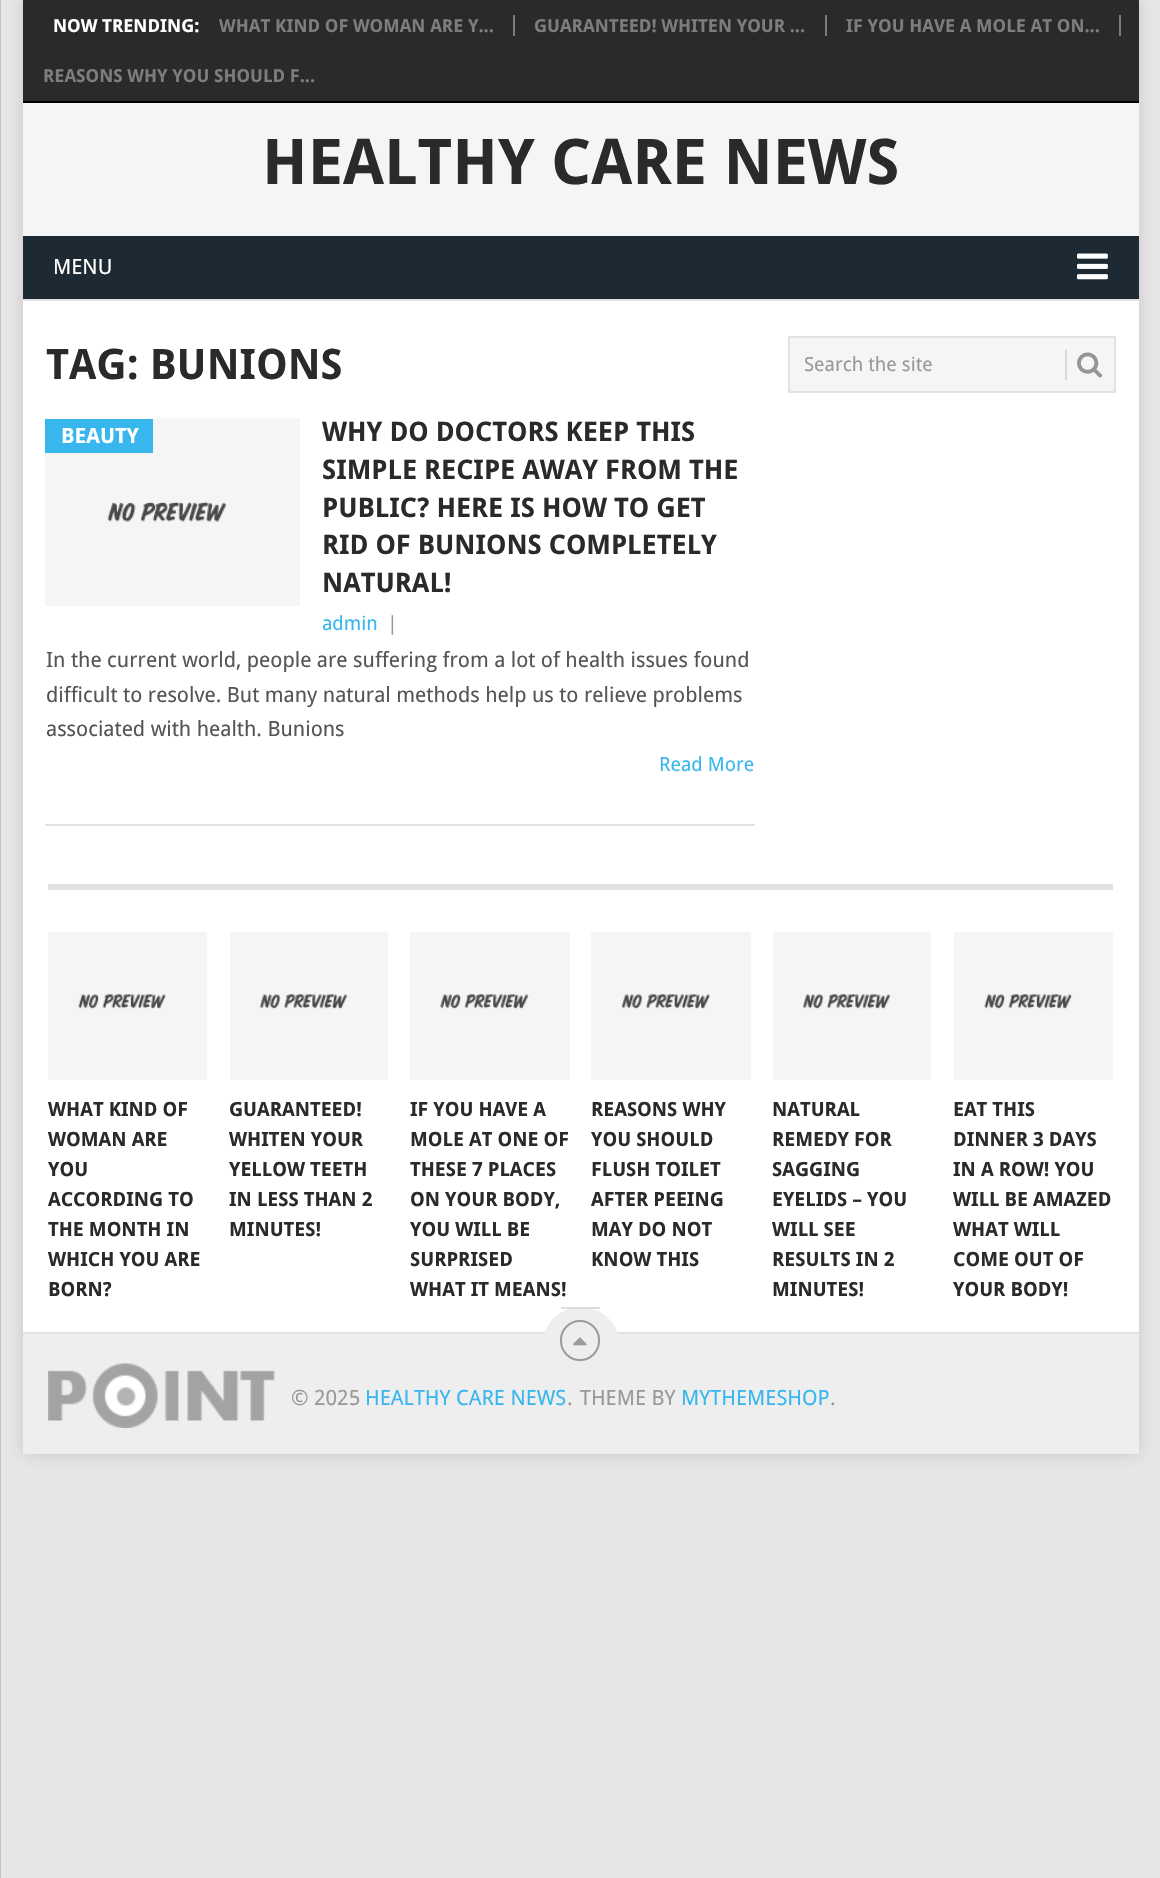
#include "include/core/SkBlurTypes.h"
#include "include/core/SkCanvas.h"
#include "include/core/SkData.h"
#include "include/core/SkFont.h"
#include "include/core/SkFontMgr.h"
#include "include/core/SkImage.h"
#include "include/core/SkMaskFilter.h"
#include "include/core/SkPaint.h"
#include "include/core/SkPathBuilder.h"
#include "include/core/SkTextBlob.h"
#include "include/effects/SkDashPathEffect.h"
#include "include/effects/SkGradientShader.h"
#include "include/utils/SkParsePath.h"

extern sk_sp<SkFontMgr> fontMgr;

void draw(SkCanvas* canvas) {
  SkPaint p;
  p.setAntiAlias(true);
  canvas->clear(SkColorSetRGB(231, 229, 230));
  p.setColor(SkColorSetARGB(43, 50, 50, 50));
  p.setMaskFilter(SkMaskFilter::MakeBlur(kNormal_SkBlurStyle, 7.5f));
  canvas->drawRect(SkRect::MakeLTRB(23, 0, 1139, 1454), p);
  p.setMaskFilter(nullptr);
  p.setColor(SK_ColorWHITE);
  canvas->drawRect(SkRect::MakeLTRB(23, 301, 1139, 1332), p);
  p.setColor(SkColorSetRGB(42, 42, 42));
  canvas->drawRect(SkRect::MakeLTRB(23, 0, 1139, 101), p);
  p.setColor(SK_ColorBLACK);
  canvas->drawRect(SkRect::MakeLTRB(23, 101, 1139, 103), p);
  p.setColor(SkColorSetRGB(125, 125, 125));
  canvas->drawRect(SkRect::MakeLTRB(513, 15, 515, 36), p);
  canvas->drawRect(SkRect::MakeLTRB(825, 15, 827, 36), p);
  canvas->drawRect(SkRect::MakeLTRB(1119, 15, 1121, 36), p);
  p.setColor(SkColorSetRGB(245, 245, 245));
  canvas->drawRect(SkRect::MakeLTRB(23, 103, 1139, 236), p);
  p.setColor(SkColorSetRGB(196, 195, 195));
  canvas->drawRect(SkRect::MakeLTRB(0, 0, 1, 1878), p);
  p.setColor(SkColorSetRGB(29, 41, 51));
  canvas->drawRect(SkRect::MakeLTRB(23, 236, 1139, 299), p);
  canvas->drawImageRect(SkImages::DeferredFromEncodedData(SkData::MakeFromFileName("images/1.png")), SkRect::MakeLTRB(1077, 253, 1108, 280), SkSamplingOptions());
  p.setColor(SkColorSetRGB(226, 226, 226));
  canvas->drawRect(SkRect::MakeLTRB(23, 299, 1139, 301), p);
  canvas->drawRect(SkRect::MakeLTRB(45, 824, 755, 826), p);
  canvas->drawImageRect(SkImages::DeferredFromEncodedData(SkData::MakeFromFileName("images/2.png")), SkRect::MakeLTRB(45, 418, 300, 606), SkSamplingOptions());
  p.setColor(SkColorSetRGB(56, 183, 238));
  canvas->drawRect(SkRect::MakeLTRB(45, 419, 153, 453), p);
  p.setColor(SkColorSetRGB(245, 245, 245));
  canvas->drawRect(SkRect::MakeLTRB(789, 337, 1115, 392), p);
  p.setStyle(SkPaint::kStroke_Style);
  p.setStrokeWidth(2);
  p.setColor(SkColorSetRGB(226, 226, 226));
  canvas->drawRect(SkRect::MakeLTRB(789, 337, 1115, 392), p);
  p.setStyle(SkPaint::kFill_Style);
  p.setColor(SkColorSetRGB(216, 216, 216));
  canvas->drawRect(SkRect::MakeLTRB(1065, 350, 1067, 380), p);
  canvas->drawImageRect(SkImages::DeferredFromEncodedData(SkData::MakeFromFileName("images/3.png")), SkRect::MakeLTRB(1077, 352, 1103, 378), SkSamplingOptions());
  p.setColor(SkColorSetRGB(226, 226, 226));
  canvas->drawRect(SkRect::MakeLTRB(48, 884, 1113, 890), p);
  canvas->drawImageRect(SkImages::DeferredFromEncodedData(SkData::MakeFromFileName("images/4.png")), SkRect::MakeLTRB(48, 932, 207, 1080), SkSamplingOptions());
  canvas->drawImageRect(SkImages::DeferredFromEncodedData(SkData::MakeFromFileName("images/5.png")), SkRect::MakeLTRB(230, 932, 388, 1080), SkSamplingOptions());
  canvas->drawImageRect(SkImages::DeferredFromEncodedData(SkData::MakeFromFileName("images/6.png")), SkRect::MakeLTRB(410, 932, 570, 1080), SkSamplingOptions());
  canvas->drawImageRect(SkImages::DeferredFromEncodedData(SkData::MakeFromFileName("images/7.png")), SkRect::MakeLTRB(591, 932, 751, 1080), SkSamplingOptions());
  canvas->drawImageRect(SkImages::DeferredFromEncodedData(SkData::MakeFromFileName("images/5.png")), SkRect::MakeLTRB(773, 932, 931, 1080), SkSamplingOptions());
  canvas->drawImageRect(SkImages::DeferredFromEncodedData(SkData::MakeFromFileName("images/8.png")), SkRect::MakeLTRB(954, 932, 1113, 1080), SkSamplingOptions());
  p.setColor(SkColorSetRGB(238, 238, 238));
  canvas->drawRect(SkRect::MakeLTRB(23, 1334, 1139, 1454), p);
  p.setColor(SkColorSetRGB(226, 226, 226));
  canvas->drawRect(SkRect::MakeLTRB(23, 1332, 1139, 1334), p);
  p.setColor(SkColorSetRGB(238, 238, 238));
  canvas->drawCircle(581, 1346, 39, p);
  p.setColor(SkColorSetRGB(221, 221, 221));
  canvas->drawRect(SkRect::MakeLTRB(561, 1307, 600, 1309), p);
  p.setStyle(SkPaint::kStroke_Style);
  p.setColor(SkColorSetRGB(155, 155, 155));
  canvas->drawRoundRect(SkRect::MakeLTRB(561, 1321, 599, 1360), 19, 19, p);
  canvas->drawImageRect(SkImages::DeferredFromEncodedData(SkData::MakeFromFileName("images/9.png")), SkRect::MakeLTRB(573, 1337, 587, 1346), SkSamplingOptions());
  canvas->drawImageRect(SkImages::DeferredFromEncodedData(SkData::MakeFromFileName("images/10.png")), SkRect::MakeLTRB(48, 1363, 275, 1428), SkSamplingOptions());
  SkFont font1(fontMgr->matchFamilyStyle("Droid Sans", SkFontStyle::Bold()), 18);
  font1.setSubpixel(true);
  p.setStyle(SkPaint::kFill_Style);
  p.setColor(SK_ColorWHITE);
  canvas->drawString("NOW TRENDING:", 53, 32, font1, p);
  p.setColor(SkColorSetRGB(125, 125, 125));
  canvas->drawString("WHAT KIND OF WOMAN ARE Y...", 219, 32, font1, p);
  canvas->drawString("GUARANTEED! WHITEN YOUR ...", 534, 32, font1, p);
  canvas->drawString("IF YOU HAVE A MOLE AT ON...", 846, 32, font1, p);
  canvas->drawString("REASONS WHY YOU SHOULD F...", 43, 82, font1, p);
  SkFont font2(fontMgr->matchFamilyStyle("Droid Sans", SkFontStyle::Bold()), 63);
  font2.setSubpixel(true);
  p.setColor(SkColorSetRGB(42, 42, 42));
  canvas->drawString("HEALTHY CARE NEWS", 262, 184, font2, p);
  SkFont font3(fontMgr->matchFamilyStyle("Droid Sans", SkFontStyle::Normal()), 21);
  font3.setSubpixel(true);
  p.setColor(SK_ColorWHITE);
  canvas->drawString("MENU", 53, 274, font3, p);
  SkFont font4(fontMgr->matchFamilyStyle("Droid Sans", SkFontStyle::Bold()), 42);
  font4.setSubpixel(true);
  p.setColor(SkColorSetRGB(42, 42, 42));
  canvas->drawString("TAG: BUNIONS", 46, 379, font4, p);
  SkFont font5(fontMgr->matchFamilyStyle("Droid Sans", SkFontStyle::Bold()), 21);
  font5.setSubpixel(true);
  p.setColor(SK_ColorWHITE);
  canvas->drawString("BEAUTY", 61, 443, font5, p);
  SkFont font6(fontMgr->matchFamilyStyle("Droid Sans", SkFontStyle::Bold()), 27);
  font6.setSubpixel(true);
  p.setColor(SkColorSetRGB(42, 42, 42));
  canvas->drawString("WHY DO DOCTORS KEEP THIS", 322, 441, font6, p);
  canvas->drawString("SIMPLE RECIPE AWAY FROM THE", 322, 479, font6, p);
  canvas->drawString("PUBLIC? HERE IS HOW TO GET", 322, 517, font6, p);
  canvas->drawString("RID OF BUNIONS COMPLETELY", 322, 554, font6, p);
  canvas->drawString("NATURAL!", 322, 592, font6, p);
  SkFont font7(fontMgr->matchFamilyStyle("Droid Sans", SkFontStyle::Normal()), 19.5f);
  font7.setSubpixel(true);
  p.setColor(SkColorSetRGB(56, 183, 238));
  canvas->drawString("admin", 322, 630, font7, p);
  p.setColor(SkColorSetRGB(153, 153, 153));
  canvas->drawString("|", 387, 630, font7, p);
  p.setColor(SkColorSetRGB(85, 85, 85));
  canvas->drawString("In the current world, people are suffering from a lot of health issues found", 46, 667, font3, p);
  canvas->drawString("difficult to resolve. But many natural methods help us to relieve problems", 46, 702, font3, p);
  canvas->drawString("associated with health. Bunions", 46, 736, font3, p);
  p.setColor(SkColorSetRGB(56, 183, 238));
  canvas->drawString("Read More", 659, 771, font7, p);
  p.setColor(SkColorSetRGB(153, 153, 153));
  canvas->drawString("Search the site", 804, 371, font7, p);
  SkFont font8(fontMgr->matchFamilyStyle("Droid Sans", SkFontStyle::Bold()), 19.5f);
  font8.setSubpixel(true);
  p.setColor(SkColorSetRGB(42, 42, 42));
  canvas->drawString("WHAT KIND OF", 48, 1116, font8, p);
  canvas->drawString("WOMAN ARE", 48, 1146, font8, p);
  canvas->drawString("YOU", 48, 1176, font8, p);
  canvas->drawString("ACCORDING TO", 48, 1206, font8, p);
  canvas->drawString("THE MONTH IN", 48, 1236, font8, p);
  canvas->drawString("WHICH YOU ARE", 48, 1266, font8, p);
  canvas->drawString("BORN?", 48, 1296, font8, p);
  canvas->drawString("GUARANTEED!", 229, 1116, font8, p);
  canvas->drawString("WHITEN YOUR", 229, 1146, font8, p);
  canvas->drawString("YELLOW TEETH", 229, 1176, font8, p);
  canvas->drawString("IN LESS THAN 2", 229, 1206, font8, p);
  canvas->drawString("MINUTES!", 229, 1236, font8, p);
  canvas->drawString("IF YOU HAVE A", 410, 1116, font8, p);
  canvas->drawString("MOLE AT ONE OF", 410, 1146, font8, p);
  canvas->drawString("THESE 7 PLACES", 410, 1176, font8, p);
  canvas->drawString("ON YOUR BODY,", 410, 1206, font8, p);
  canvas->drawString("YOU WILL BE", 410, 1236, font8, p);
  canvas->drawString("SURPRISED", 410, 1266, font8, p);
  canvas->drawString("WHAT IT MEANS!", 410, 1296, font8, p);
  canvas->drawString("REASONS WHY", 591, 1116, font8, p);
  canvas->drawString("YOU SHOULD", 591, 1146, font8, p);
  canvas->drawString("FLUSH TOILET", 591, 1176, font8, p);
  canvas->drawString("AFTER PEEING", 591, 1206, font8, p);
  canvas->drawString("MAY DO NOT", 591, 1236, font8, p);
  canvas->drawString("KNOW THIS", 591, 1266, font8, p);
  canvas->drawString("NATURAL", 772, 1116, font8, p);
  canvas->drawString("REMEDY FOR", 772, 1146, font8, p);
  canvas->drawString("SAGGING", 772, 1176, font8, p);
  canvas->drawString("EYELIDS – YOU", 772, 1206, font8, p);
  canvas->drawString("WILL SEE", 772, 1236, font8, p);
  canvas->drawString("RESULTS IN 2", 772, 1266, font8, p);
  canvas->drawString("MINUTES!", 772, 1296, font8, p);
  canvas->drawString("EAT THIS", 953, 1116, font8, p);
  canvas->drawString("DINNER 3 DAYS", 953, 1146, font8, p);
  canvas->drawString("IN A ROW! YOU", 953, 1176, font8, p);
  canvas->drawString("WILL BE AMAZED", 953, 1206, font8, p);
  canvas->drawString("WHAT WILL", 953, 1236, font8, p);
  canvas->drawString("COME OUT OF", 953, 1266, font8, p);
  canvas->drawString("YOUR BODY!", 953, 1296, font8, p);
  p.setColor(SkColorSetRGB(153, 153, 153));
  canvas->drawString("© 2025", 291, 1405, font3, p);
  p.setColor(SkColorSetRGB(56, 183, 238));
  canvas->drawString("HEALTHY CARE NEWS", 365, 1405, font3, p);
  p.setColor(SkColorSetRGB(153, 153, 153));
  canvas->drawString(".", 567, 1405, font3, p);
  canvas->drawString("THEME BY", 580, 1405, font3, p);
  p.setColor(SkColorSetRGB(56, 183, 238));
  canvas->drawString("MYTHEMESHOP", 681, 1405, font3, p);
  p.setColor(SkColorSetRGB(153, 153, 153));
  canvas->drawString(".", 830, 1405, font3, p);
}
